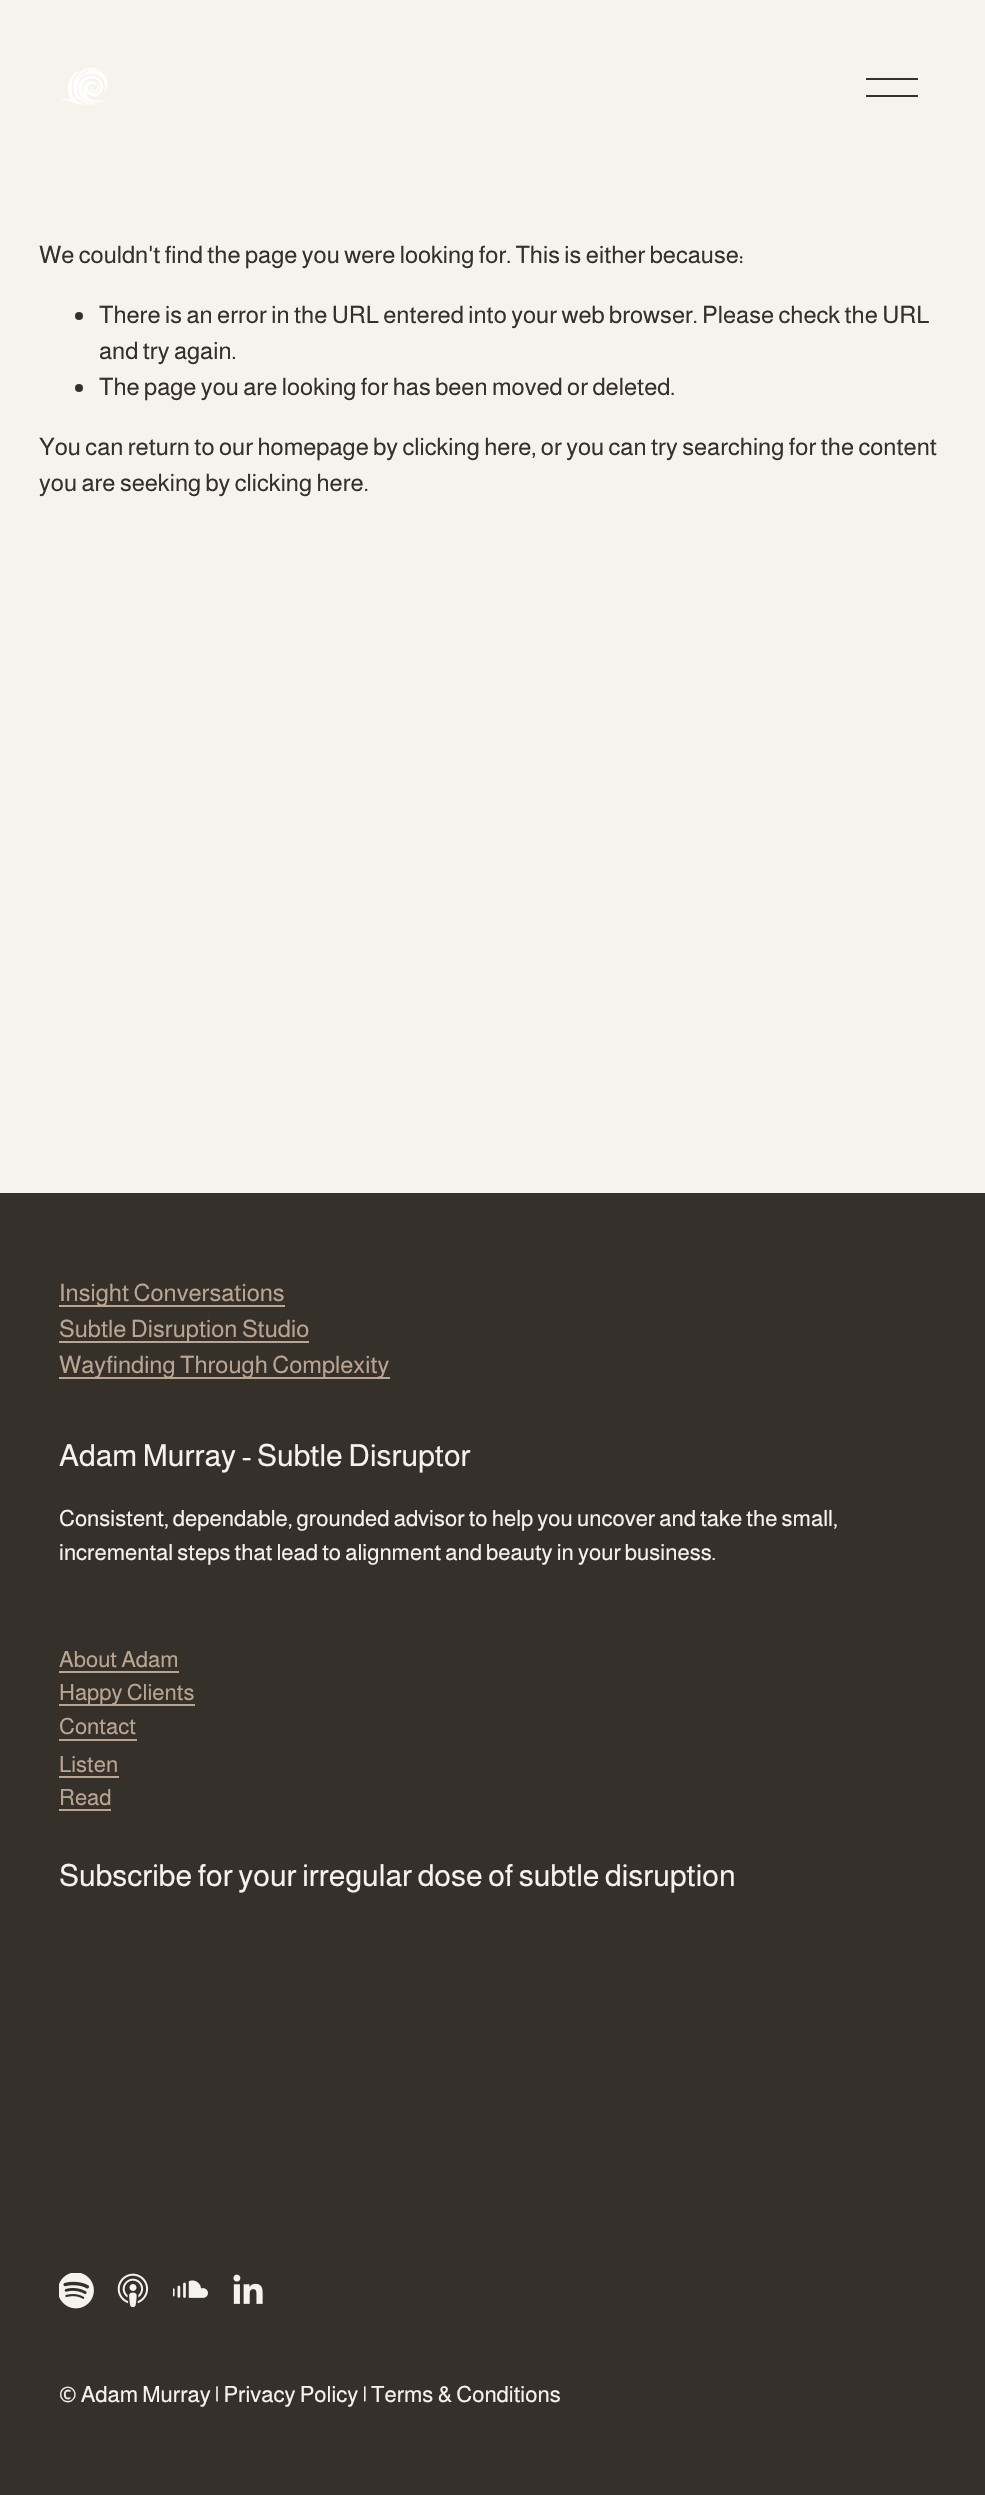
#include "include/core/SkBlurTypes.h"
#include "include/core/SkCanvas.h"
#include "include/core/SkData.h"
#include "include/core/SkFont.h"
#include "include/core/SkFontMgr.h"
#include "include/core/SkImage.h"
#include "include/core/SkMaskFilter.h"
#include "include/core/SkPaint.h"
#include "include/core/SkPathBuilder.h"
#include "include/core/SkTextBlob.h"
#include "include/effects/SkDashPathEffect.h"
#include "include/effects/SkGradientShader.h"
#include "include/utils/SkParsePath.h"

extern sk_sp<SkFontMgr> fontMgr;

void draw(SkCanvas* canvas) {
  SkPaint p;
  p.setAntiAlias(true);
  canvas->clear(SkColorSetRGB(246, 243, 236));
  canvas->drawImageRect(SkImages::DeferredFromEncodedData(SkData::MakeFromFileName("images/1.png")), SkRect::MakeLTRB(61, 68, 108, 105), SkSamplingOptions());
  p.setColor(SkColorSetRGB(54, 48, 42));
  canvas->drawRect(SkRect::MakeLTRB(866, 78, 918, 80), p);
  canvas->drawRect(SkRect::MakeLTRB(866, 95, 918, 97), p);
  canvas->drawCircle(79, 316, 4, p);
  canvas->drawCircle(79, 388, 4, p);
  canvas->drawRect(SkRect::MakeLTRB(0, 1193, 985, 2495), p);
  p.setColor(SkColorSetRGB(185, 165, 144));
  canvas->drawRect(SkRect::MakeLTRB(59, 1305, 285, 1307), p);
  canvas->drawRect(SkRect::MakeLTRB(59, 1341, 309, 1343), p);
  canvas->drawRect(SkRect::MakeLTRB(59, 1377, 390, 1379), p);
  canvas->drawRect(SkRect::MakeLTRB(59, 1671, 179, 1673), p);
  canvas->drawRect(SkRect::MakeLTRB(59, 1704, 195, 1706), p);
  canvas->drawRect(SkRect::MakeLTRB(59, 1739, 137, 1741), p);
  canvas->drawRect(SkRect::MakeLTRB(59, 1776, 119, 1778), p);
  canvas->drawRect(SkRect::MakeLTRB(59, 1809, 111, 1811), p);
  canvas->drawImageRect(SkImages::DeferredFromEncodedData(SkData::MakeFromFileName("images/2.png")), SkRect::MakeLTRB(59, 2273, 94, 2309), SkSamplingOptions());
  canvas->drawImageRect(SkImages::DeferredFromEncodedData(SkData::MakeFromFileName("images/3.png")), SkRect::MakeLTRB(117, 2273, 149, 2308), SkSamplingOptions());
  canvas->drawImageRect(SkImages::DeferredFromEncodedData(SkData::MakeFromFileName("images/4.png")), SkRect::MakeLTRB(173, 2280, 208, 2298), SkSamplingOptions());
  canvas->drawImageRect(SkImages::DeferredFromEncodedData(SkData::MakeFromFileName("images/5.png")), SkRect::MakeLTRB(233, 2274, 263, 2304), SkSamplingOptions());
  SkFont font1(fontMgr->matchFamilyStyle("Almarai", SkFontStyle::Normal()), 24);
  font1.setSubpixel(true);
  p.setColor(SkColorSetRGB(54, 48, 42));
  canvas->drawString("We couldn't find the page you were looking for. This is either because:", 39, 263, font1, p);
  canvas->drawString("There is an error in the URL entered into your web browser. Please check the URL", 99, 323, font1, p);
  canvas->drawString("and try again.", 99, 359, font1, p);
  canvas->drawString("The page you are looking for has been moved or deleted.", 99, 395, font1, p);
  canvas->drawString("You can return to our homepage by clicking here, or you can try searching for the content", 39, 455, font1, p);
  canvas->drawString("you are seeking by clicking here.", 39, 491, font1, p);
  p.setColor(SkColorSetRGB(185, 165, 144));
  canvas->drawString("Insight Conversations", 59, 1301, font1, p);
  canvas->drawString("Subtle Disruption Studio", 59, 1337, font1, p);
  canvas->drawString("Wayfinding Through Complexity", 59, 1373, font1, p);
  SkFont font2(fontMgr->matchFamilyStyle("Almarai", SkFontStyle::Normal()), 30.5f);
  font2.setSubpixel(true);
  p.setColor(SkColorSetRGB(246, 243, 236));
  canvas->drawString("Adam Murray - Subtle Disruptor", 59, 1466, font2, p);
  SkFont font3(fontMgr->matchFamilyStyle("Almarai", SkFontStyle::Normal()), 22.4f);
  font3.setSubpixel(true);
  canvas->drawString("Consistent, dependable, grounded advisor to help you uncover and take the small,", 59, 1526, font3, p);
  canvas->drawString("incremental steps that lead to alignment and beauty in your business.", 59, 1560, font3, p);
  p.setColor(SkColorSetRGB(185, 165, 144));
  canvas->drawString("About Adam", 59, 1667, font3, p);
  canvas->drawString("Happy Clients", 59, 1700, font3, p);
  canvas->drawString("Contact", 59, 1734, font3, p);
  canvas->drawString("Listen", 59, 1772, font3, p);
  canvas->drawString("Read", 59, 1805, font3, p);
  p.setColor(SkColorSetRGB(246, 243, 236));
  canvas->drawString("Subscribe for your irregular dose of subtle disruption", 59, 1886, font2, p);
  canvas->drawString("© Adam Murray | Privacy Policy | Terms & Conditions", 59, 2402, font3, p);
}
